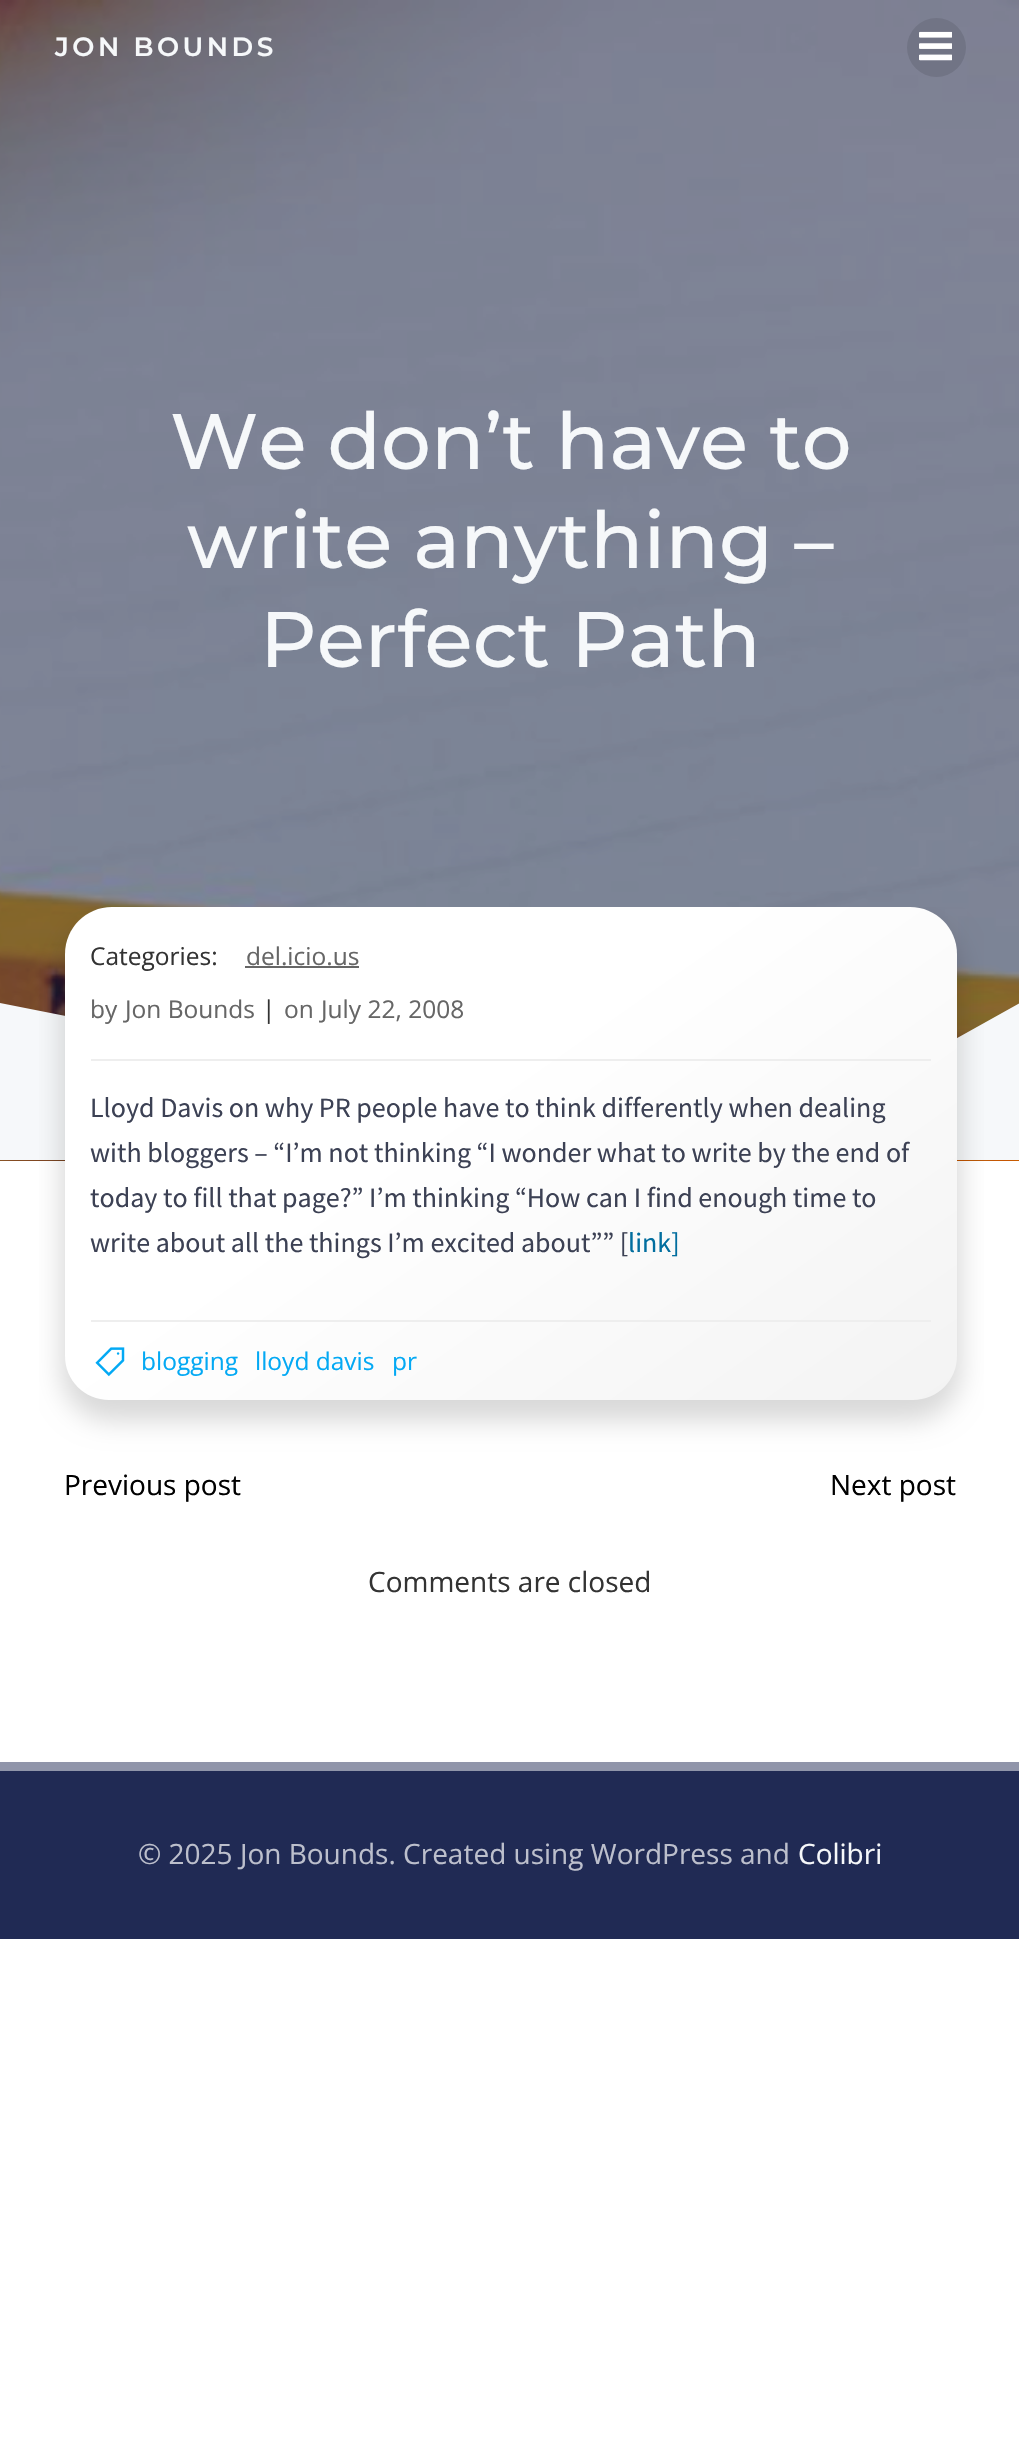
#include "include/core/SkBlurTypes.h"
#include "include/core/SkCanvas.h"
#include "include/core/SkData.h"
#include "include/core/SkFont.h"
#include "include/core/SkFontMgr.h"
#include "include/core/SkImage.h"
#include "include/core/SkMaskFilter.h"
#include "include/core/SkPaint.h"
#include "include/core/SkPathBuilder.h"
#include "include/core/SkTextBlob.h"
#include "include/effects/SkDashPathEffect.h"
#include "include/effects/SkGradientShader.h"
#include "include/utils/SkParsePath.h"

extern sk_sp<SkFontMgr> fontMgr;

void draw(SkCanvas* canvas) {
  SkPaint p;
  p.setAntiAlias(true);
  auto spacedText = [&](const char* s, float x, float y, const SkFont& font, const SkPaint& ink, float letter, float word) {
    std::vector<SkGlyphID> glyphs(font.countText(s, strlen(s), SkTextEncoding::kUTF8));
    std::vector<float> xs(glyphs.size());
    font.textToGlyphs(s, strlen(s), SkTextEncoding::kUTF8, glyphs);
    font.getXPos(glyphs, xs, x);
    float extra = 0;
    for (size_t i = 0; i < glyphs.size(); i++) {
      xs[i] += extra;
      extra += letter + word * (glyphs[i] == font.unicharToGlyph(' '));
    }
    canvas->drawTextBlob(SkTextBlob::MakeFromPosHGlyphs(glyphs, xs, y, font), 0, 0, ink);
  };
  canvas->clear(SK_ColorWHITE);
  canvas->drawImageRect(SkImages::DeferredFromEncodedData(SkData::MakeFromFileName("images/2.png")), SkRect::MakeLTRB(0, 0, 1019, 1161), SkSamplingOptions());
  p.setColor(SkColorSetRGB(113, 116, 133));
  canvas->drawCircle(936.5f, 47.5f, 29.5f, p);
  canvas->drawImageRect(SkImages::DeferredFromEncodedData(SkData::MakeFromFileName("images/1.png")), SkRect::MakeLTRB(919, 31, 952, 61), SkSamplingOptions());
  p.setColor(SkColorSetRGB(246, 248, 250));
  canvas->drawPath(SkPathBuilder().moveTo(753, 1152).lineTo(0, 1003).lineTo(0, 1160).lineTo(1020, 1160).lineTo(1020, 1003).close().detach(), p);
  canvas->save();
  canvas->clipRect(SkRect::MakeLTRB(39, 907, 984, 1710));
  p.setColor(SkColorSetARGB(38, 0, 0, 0));
  p.setMaskFilter(SkMaskFilter::MakeBlur(kNormal_SkBlurStyle, 13));
  canvas->drawRoundRect(SkRect::MakeLTRB(61, 921, 961, 1421), 51, 51, p);
  p.setMaskFilter(nullptr);
  canvas->restore();
  {
    const SkColor colors[] = {SK_ColorWHITE, SkColorSetRGB(243, 243, 243)};
    const float stops[] = {0.42f, 1};
    const SkPoint ends[] = {{248, 778}, {774, 1528}};
    p.setShader(SkGradientShader::MakeLinear(ends, colors, stops, 2, SkTileMode::kClamp));
    p.setAlpha(255);
  }
  canvas->drawPath(SkPathBuilder().moveTo(112, 907).lineTo(910, 907).cubicTo(936, 907, 957, 928, 957, 954).lineTo(957, 1356).cubicTo(957, 1380.5f, 937.5f, 1400, 913, 1400).lineTo(109, 1400).cubicTo(84.5f, 1400, 65, 1380.5f, 65, 1356).lineTo(65, 954).cubicTo(65, 928, 86, 907, 112, 907).close().detach(), p);
  p.setShader(nullptr);
  p.setColor(SkColorSetRGB(238, 238, 238));
  canvas->drawRect(SkRect::MakeLTRB(91, 1059, 931, 1061), p);
  p.setColor(SkColorSetRGB(102, 102, 102));
  canvas->drawRect(SkRect::MakeLTRB(245, 966, 359, 968), p);
  p.setColor(SkColorSetRGB(238, 238, 238));
  canvas->drawRect(SkRect::MakeLTRB(91, 1320, 931, 1322), p);
  canvas->drawImageRect(SkImages::DeferredFromEncodedData(SkData::MakeFromFileName("images/3.png")), SkRect::MakeLTRB(95, 1347, 125, 1377), SkSamplingOptions());
  p.setColor(SkColorSetRGB(32, 42, 84));
  canvas->drawRect(SkRect::MakeLTRB(0, 1771, 1019, 1939), p);
  p.setColor(SkColorSetRGB(144, 149, 170));
  canvas->drawRect(SkRect::MakeLTRB(0, 1762, 1019, 1771), p);
  SkFont font1(fontMgr->matchFamilyStyle("Montserrat", SkFontStyle(600, SkFontStyle::kNormal_Width, SkFontStyle::kUpright_Slant)), 26.25f);
  font1.setSubpixel(true);
  p.setColor(SkColorSetRGB(246, 248, 250));
  spacedText("JON BOUNDS", 55, 56, font1, p, 3.5f, 0);
  SkFont font2(fontMgr->matchFamilyStyle("Montserrat", SkFontStyle(500, SkFontStyle::kNormal_Width, SkFontStyle::kUpright_Slant)), 78.5f);
  font2.setSubpixel(true);
  canvas->drawString("We don’t have to", 170, 469, font2, p);
  canvas->drawString("write anything –", 187, 568, font2, p);
  canvas->drawString("Perfect Path", 260, 667, font2, p);
  SkFont font3(fontMgr->matchFamilyStyle("Open Sans", SkFontStyle::Normal()), 24.5f);
  font3.setSubpixel(true);
  p.setColor(SkColorSetRGB(51, 51, 51));
  canvas->drawString("Categories:", 90, 965, font3, p);
  p.setColor(SkColorSetRGB(102, 102, 102));
  canvas->drawString("del.icio.us", 246, 965, font3, p);
  canvas->drawString("by", 90, 1018, font3, p);
  canvas->drawString("Jon Bounds", 125, 1018, font3, p);
  p.setColor(SkColorSetRGB(51, 51, 51));
  canvas->drawString("|", 262, 1018, font3, p);
  p.setColor(SkColorSetRGB(102, 102, 102));
  canvas->drawString("on", 284, 1018, font3, p);
  canvas->drawString("July 22, 2008", 321, 1018, font3, p);
  SkFont font4(fontMgr->matchFamilyStyle("Source Sans Pro", SkFontStyle::Normal()), 28);
  font4.setSubpixel(true);
  p.setColor(SkColorSetRGB(60, 65, 84));
  canvas->drawString("Lloyd Davis on why PR people have to think differently when dealing", 90, 1117, font4, p);
  canvas->drawString("with bloggers – “I’m not thinking “I wonder what to write by the end of", 90, 1162, font4, p);
  canvas->drawString("today to fill that page?” I’m thinking “How can I find enough time to", 90, 1207, font4, p);
  canvas->drawString("write about all the things I’m excited about”” [", 90, 1252, font4, p);
  p.setColor(SkColorSetRGB(2, 110, 159));
  canvas->drawString("link]", 628, 1252, font4, p);
  p.setColor(SkColorSetRGB(3, 169, 244));
  canvas->drawString("blogging", 141, 1370, font3, p);
  canvas->drawString("lloyd davis", 255, 1370, font3, p);
  canvas->drawString("pr", 392, 1370, font3, p);
  SkFont font5(fontMgr->matchFamilyStyle("Open Sans", SkFontStyle::Normal()), 28);
  font5.setSubpixel(true);
  p.setColor(SK_ColorBLACK);
  canvas->drawString("Previous post", 64, 1495, font5, p);
  canvas->drawString("Next post", 830, 1495, font5, p);
  p.setColor(SkColorSetRGB(51, 51, 51));
  canvas->drawString("Comments are closed", 368, 1592, font5, p);
  p.setColor(SkColorSetRGB(188, 191, 204));
  canvas->drawString("© 2025 Jon Bounds. Created using WordPress and", 138, 1864, font5, p);
  p.setColor(SkColorSetRGB(246, 248, 250));
  canvas->drawString("Colibri", 798, 1864, font5, p);
}
